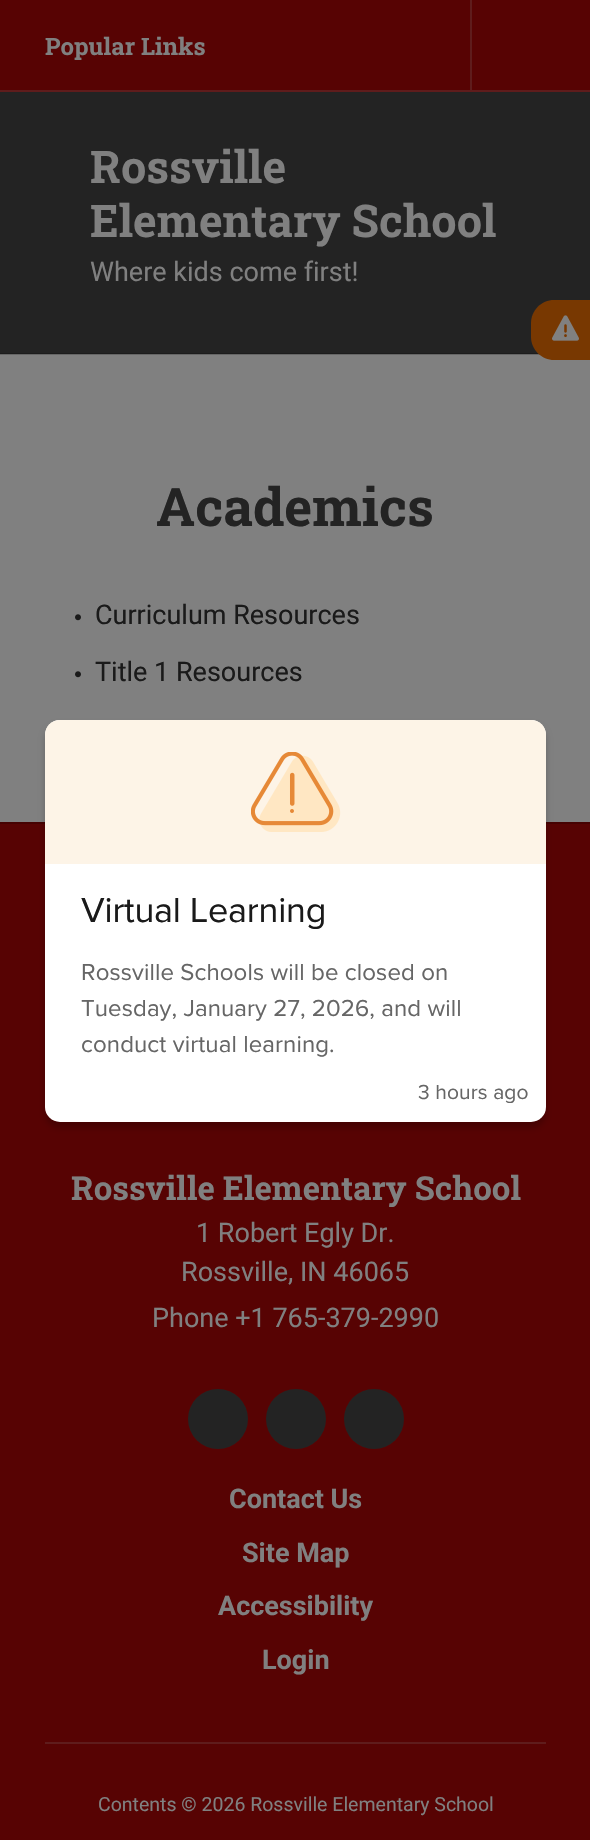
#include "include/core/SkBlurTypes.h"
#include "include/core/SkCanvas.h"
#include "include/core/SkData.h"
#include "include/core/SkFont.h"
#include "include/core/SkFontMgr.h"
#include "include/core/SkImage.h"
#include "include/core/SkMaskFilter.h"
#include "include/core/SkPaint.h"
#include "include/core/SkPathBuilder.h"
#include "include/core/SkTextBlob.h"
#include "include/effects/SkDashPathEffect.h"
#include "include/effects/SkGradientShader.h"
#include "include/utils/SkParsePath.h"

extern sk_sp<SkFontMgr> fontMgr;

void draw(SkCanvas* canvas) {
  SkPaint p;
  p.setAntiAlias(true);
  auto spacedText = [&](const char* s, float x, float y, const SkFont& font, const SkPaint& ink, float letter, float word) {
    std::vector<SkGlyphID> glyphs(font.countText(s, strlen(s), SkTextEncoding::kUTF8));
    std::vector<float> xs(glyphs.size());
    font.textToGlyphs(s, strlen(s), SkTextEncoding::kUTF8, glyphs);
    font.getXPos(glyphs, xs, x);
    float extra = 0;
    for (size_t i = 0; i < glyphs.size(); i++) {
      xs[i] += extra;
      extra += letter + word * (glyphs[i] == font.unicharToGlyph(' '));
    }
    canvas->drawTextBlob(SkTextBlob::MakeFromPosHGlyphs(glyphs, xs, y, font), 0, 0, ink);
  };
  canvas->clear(SkColorSetRGB(128, 128, 128));
  p.setColor(SkColorSetRGB(102, 102, 102));
  canvas->drawRect(SkRect::MakeLTRB(0, 354, 540, 355), p);
  p.setColor(SkColorSetRGB(87, 3, 3));
  canvas->drawRect(SkRect::MakeLTRB(0, 0, 590, 90), p);
  p.setColor(SkColorSetRGB(95, 28, 28));
  canvas->drawRect(SkRect::MakeLTRB(0, 90, 590, 92), p);
  canvas->drawRect(SkRect::MakeLTRB(470, 0, 472, 90), p);
  p.setColor(SkColorSetRGB(35, 35, 35));
  canvas->drawRect(SkRect::MakeLTRB(0, 92, 590, 353), p);
  p.setColor(SkColorSetRGB(28, 28, 28));
  canvas->drawRect(SkRect::MakeLTRB(0, 353, 539, 354), p);
  p.setColor(SkColorSetRGB(120, 56, 1));
  canvas->drawPath(SkPathBuilder().moveTo(554, 300).lineTo(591, 300).lineTo(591, 360).lineTo(554, 360).cubicTo(541.5f, 360, 531, 349.5f, 531, 337).lineTo(531, 323).cubicTo(531, 310.5f, 541.5f, 300, 554, 300).close().detach(), p);
  canvas->drawImageRect(SkImages::DeferredFromEncodedData(SkData::MakeFromFileName("images/1.png")), SkRect::MakeLTRB(552, 315, 579, 341), SkSamplingOptions());
  canvas->drawImageRect(SkImages::DeferredFromEncodedData(SkData::MakeFromFileName("images/2.png")), SkRect::MakeLTRB(75, 614, 81, 621), SkSamplingOptions());
  canvas->drawImageRect(SkImages::DeferredFromEncodedData(SkData::MakeFromFileName("images/2.png")), SkRect::MakeLTRB(75, 671, 81, 678), SkSamplingOptions());
  p.setColor(SkColorSetRGB(70, 2, 2));
  canvas->drawRect(SkRect::MakeLTRB(0, 822, 590, 824), p);
  p.setColor(SkColorSetRGB(87, 3, 3));
  canvas->drawRect(SkRect::MakeLTRB(0, 824, 590, 1840), p);
  p.setColor(SkColorSetARGB(51, 0, 0, 0));
  p.setMaskFilter(SkMaskFilter::MakeBlur(kNormal_SkBlurStyle, 3));
  canvas->drawRoundRect(SkRect::MakeLTRB(45, 726, 546, 1128), 15, 15, p);
  p.setMaskFilter(nullptr);
  p.setColor(SK_ColorWHITE);
  canvas->drawRoundRect(SkRect::MakeLTRB(45, 720, 546, 1122), 15, 15, p);
  p.setColor(SkColorSetRGB(253, 244, 231));
  canvas->drawPath(SkPathBuilder().moveTo(60, 720).lineTo(531, 720).cubicTo(539.5f, 720, 546, 726.5f, 546, 735).lineTo(546, 864).lineTo(45, 864).lineTo(45, 735).cubicTo(45, 726.5f, 51.5f, 720, 60, 720).close().detach(), p);
  canvas->drawImageRect(SkImages::DeferredFromEncodedData(SkData::MakeFromFileName("images/3.png")), SkRect::MakeLTRB(251, 752, 341, 832), SkSamplingOptions());
  p.setColor(SkColorSetRGB(35, 35, 35));
  canvas->drawCircle(218, 1419, 30, p);
  canvas->drawCircle(296, 1419, 30, p);
  canvas->drawCircle(374, 1419, 30, p);
  p.setColor(SkColorSetRGB(95, 28, 28));
  canvas->drawRect(SkRect::MakeLTRB(45, 1742, 546, 1744), p);
  SkFont font1(fontMgr->matchFamilyStyle("Roboto Slab", SkFontStyle::Bold()), 24);
  font1.setSubpixel(true);
  p.setColor(SkColorSetRGB(128, 128, 128));
  canvas->drawString("Popular Links", 45, 55, font1, p);
  SkFont font2(fontMgr->matchFamilyStyle("Roboto Slab", SkFontStyle::Bold()), 45);
  font2.setSubpixel(true);
  canvas->drawString("Rossville", 90, 183, font2, p);
  canvas->drawString("Elementary School", 90, 237, font2, p);
  SkFont font3(fontMgr->matchFamilyStyle("Roboto", SkFontStyle::Normal()), 27);
  font3.setSubpixel(true);
  canvas->drawString("Where kids come first!", 90, 281, font3, p);
  SkFont font4(fontMgr->matchFamilyStyle("Roboto Slab", SkFontStyle::Bold()), 53);
  font4.setSubpixel(true);
  p.setColor(SkColorSetRGB(35, 35, 35));
  canvas->drawString("Academics", 156, 526, font4, p);
  p.setColor(SkColorSetRGB(26, 26, 26));
  canvas->drawString("Curriculum Resources", 95, 624, font3, p);
  canvas->drawString("Title 1 Resources", 95, 681, font3, p);
  SkFont font5(fontMgr->matchFamilyStyle("Proxima Nova", SkFontStyle::Normal()), 36);
  font5.setSubpixel(true);
  spacedText("Virtual Learning", 81, 922, font5, p, -0.2f, 0);
  SkFont font6(fontMgr->matchFamilyStyle("Proxima Nova", SkFontStyle::Normal()), 24);
  font6.setSubpixel(true);
  p.setColor(SkColorSetRGB(102, 102, 102));
  spacedText("Rossville Schools will be closed on", 81, 980, font6, p, 0.1f, 0);
  spacedText("Tuesday, January 27, 2026, and will", 81, 1016, font6, p, 0.1f, 0);
  spacedText("conduct virtual learning.", 81, 1052, font6, p, 0.1f, 0);
  SkFont font7(fontMgr->matchFamilyStyle("Proxima Nova", SkFontStyle::Normal()), 21);
  font7.setSubpixel(true);
  spacedText("3 hours ago", 418, 1099, font7, p, 0.1f, 0);
  SkFont font8(fontMgr->matchFamilyStyle("Roboto Slab", SkFontStyle::Bold()), 33);
  font8.setSubpixel(true);
  p.setColor(SkColorSetRGB(128, 128, 128));
  canvas->drawString("Rossville Elementary School", 71, 1200, font8, p);
  canvas->drawString("1 Robert Egly Dr.", 196, 1242, font3, p);
  canvas->drawString("Rossville, IN 46065", 181, 1281, font3, p);
  canvas->drawString("Phone +1 765-379-2990", 152, 1327, font3, p);
  SkFont font9(fontMgr->matchFamilyStyle("Roboto", SkFontStyle::Bold()), 27);
  font9.setSubpixel(true);
  canvas->drawString("Contact Us", 229, 1508, font9, p);
  canvas->drawString("Site Map", 242, 1562, font9, p);
  canvas->drawString("Accessibility", 218, 1615, font9, p);
  canvas->drawString("Login", 262, 1669, font9, p);
  SkFont font10(fontMgr->matchFamilyStyle("Roboto", SkFontStyle::Normal()), 19.5f);
  font10.setSubpixel(true);
  canvas->drawString("Contents © 2026 Rossville Elementary School", 98, 1811, font10, p);
}
